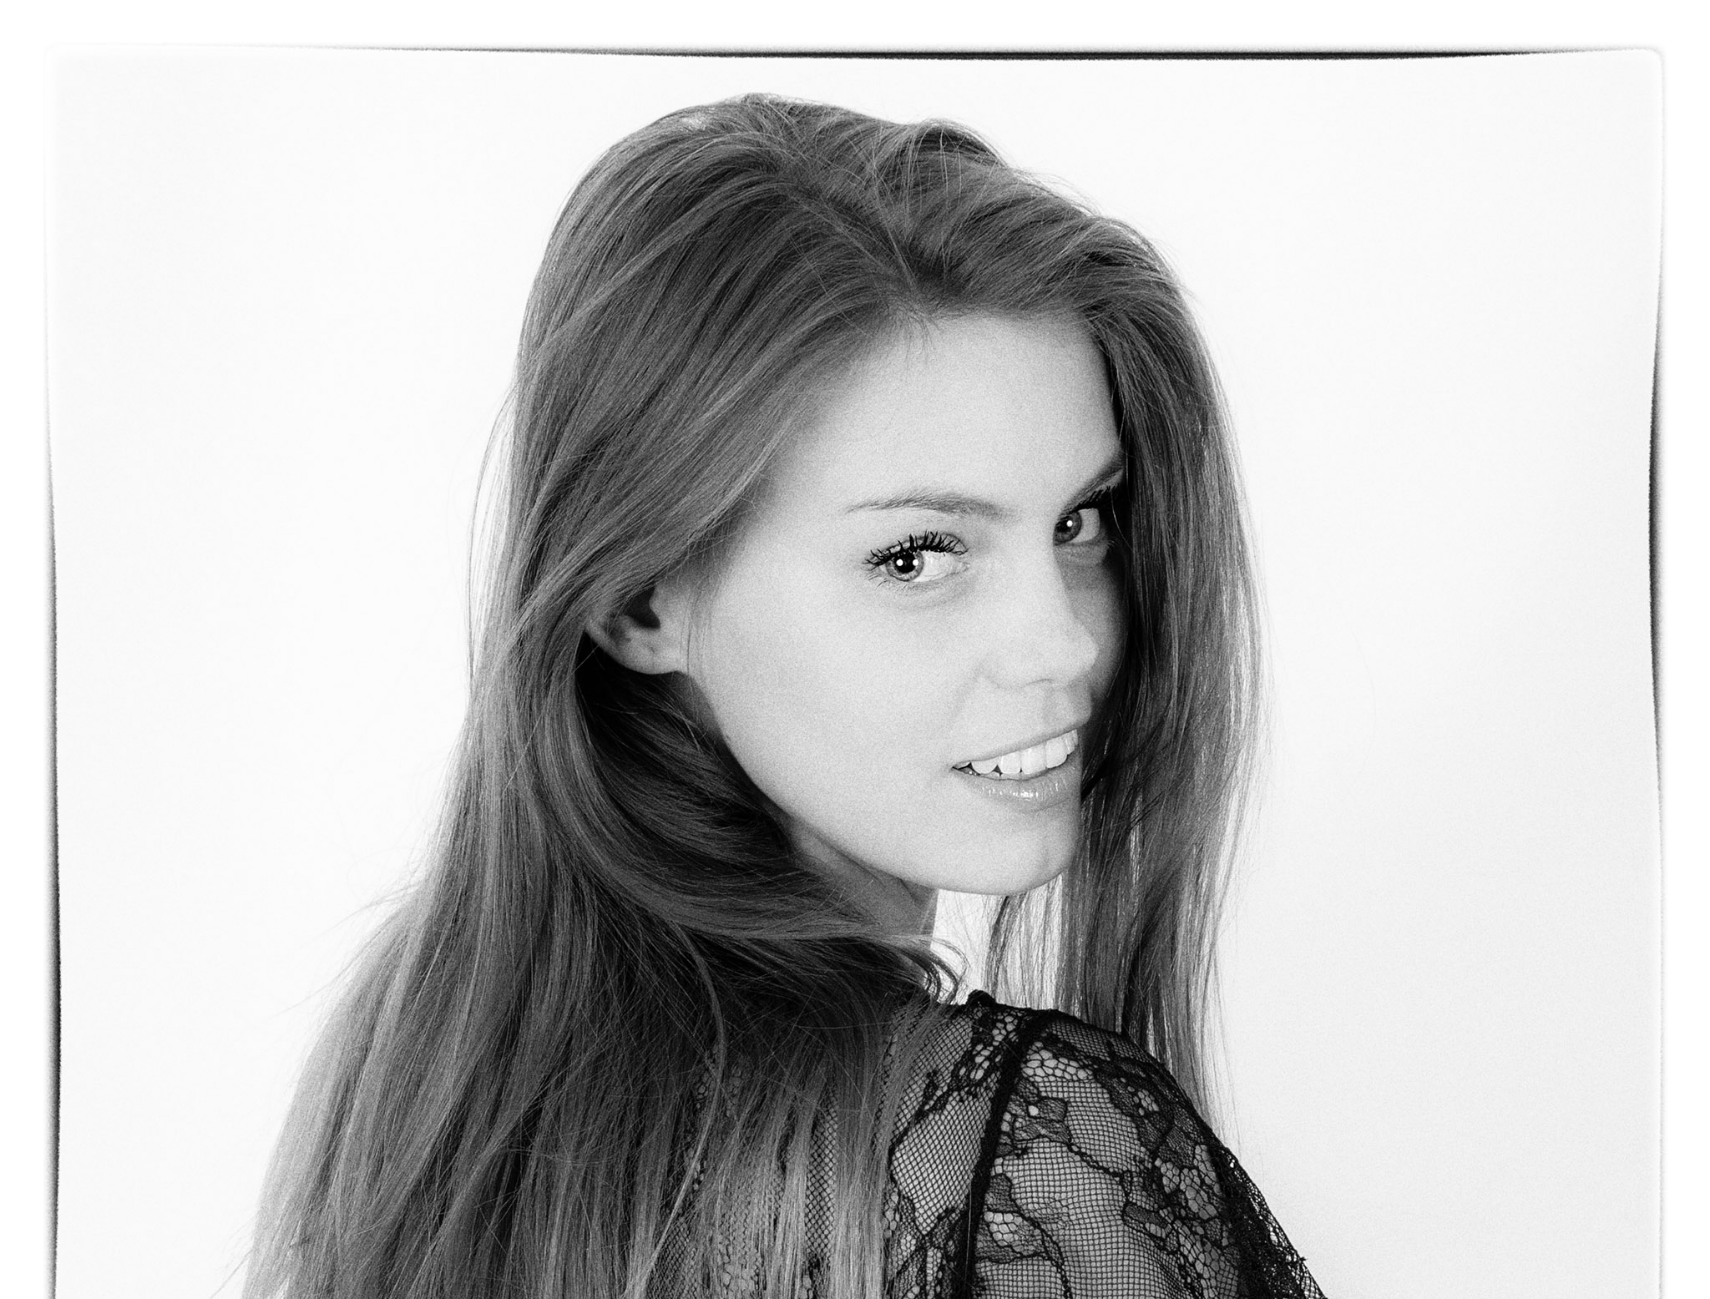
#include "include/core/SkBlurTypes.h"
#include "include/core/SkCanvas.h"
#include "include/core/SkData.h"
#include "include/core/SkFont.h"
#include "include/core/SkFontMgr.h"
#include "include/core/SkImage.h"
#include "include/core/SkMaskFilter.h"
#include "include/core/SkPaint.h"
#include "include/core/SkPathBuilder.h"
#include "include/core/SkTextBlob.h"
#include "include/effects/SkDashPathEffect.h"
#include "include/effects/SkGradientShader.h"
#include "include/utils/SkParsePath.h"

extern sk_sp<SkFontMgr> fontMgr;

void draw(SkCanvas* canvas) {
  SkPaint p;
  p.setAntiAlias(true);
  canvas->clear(SK_ColorWHITE);
  canvas->drawImageRect(SkImages::DeferredFromEncodedData(SkData::MakeFromFileName("images/1.png")), SkRect::MakeLTRB(43, 42, 1668, 1299), SkSamplingOptions());
}
